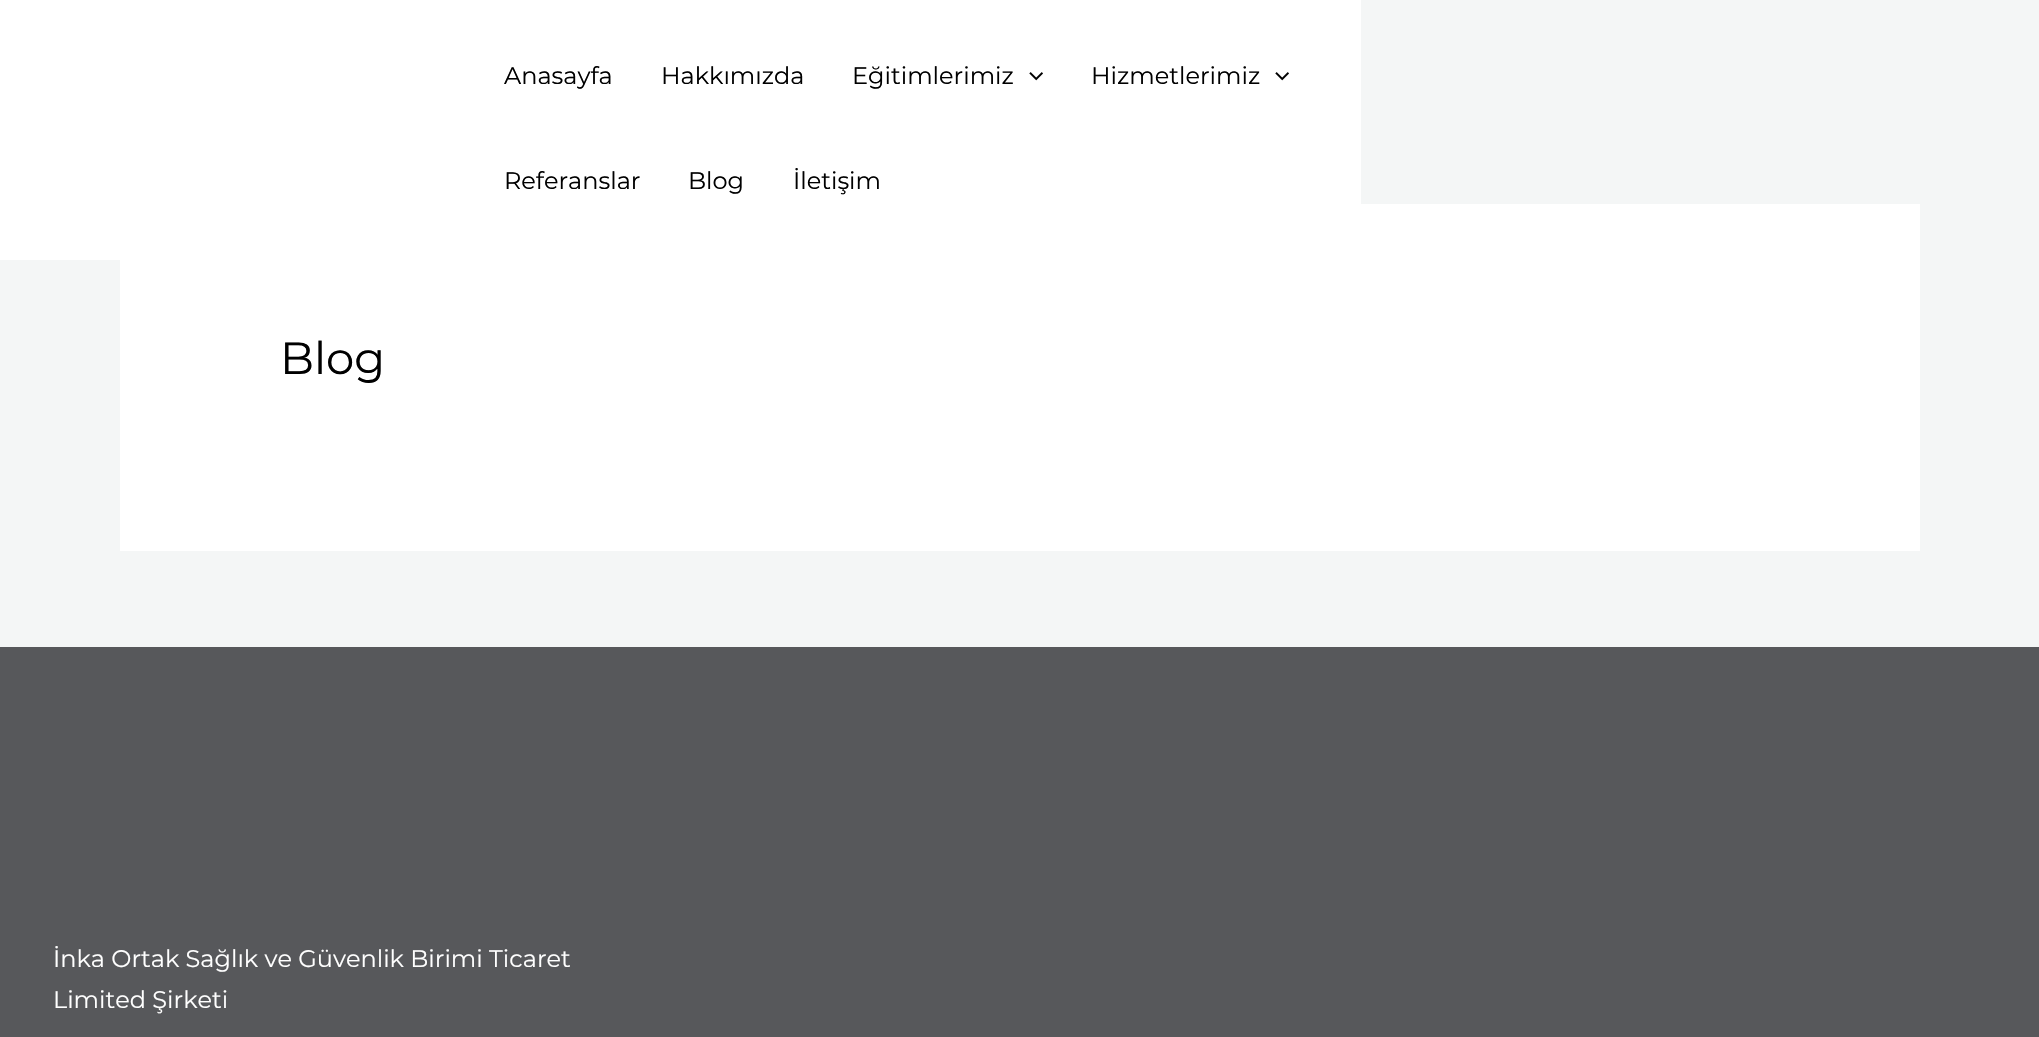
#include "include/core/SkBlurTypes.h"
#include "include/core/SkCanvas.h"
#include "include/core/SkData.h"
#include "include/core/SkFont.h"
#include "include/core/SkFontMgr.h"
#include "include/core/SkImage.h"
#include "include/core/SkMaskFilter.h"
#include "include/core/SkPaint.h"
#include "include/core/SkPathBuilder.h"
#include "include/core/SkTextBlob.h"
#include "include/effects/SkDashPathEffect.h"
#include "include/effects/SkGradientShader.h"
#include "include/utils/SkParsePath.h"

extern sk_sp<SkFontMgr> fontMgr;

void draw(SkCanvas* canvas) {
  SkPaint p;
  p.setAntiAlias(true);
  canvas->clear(SkColorSetRGB(244, 246, 246));
  p.setColor(SK_ColorWHITE);
  canvas->drawRect(SkRect::MakeLTRB(120, 204, 1920, 551), p);
  canvas->drawRect(SkRect::MakeLTRB(0, 0, 1361, 260), p);
  canvas->drawImageRect(SkImages::DeferredFromEncodedData(SkData::MakeFromFileName("images/1.png")), SkRect::MakeLTRB(1029, 72, 1043, 81), SkSamplingOptions());
  canvas->drawImageRect(SkImages::DeferredFromEncodedData(SkData::MakeFromFileName("images/1.png")), SkRect::MakeLTRB(1275, 72, 1289, 81), SkSamplingOptions());
  p.setColor(SkColorSetRGB(87, 88, 91));
  canvas->drawRect(SkRect::MakeLTRB(0, 647, 2039, 1037), p);
  SkFont font1(fontMgr->matchFamilyStyle("Montserrat", SkFontStyle::Normal()), 24);
  font1.setSubpixel(true);
  p.setColor(SK_ColorBLACK);
  canvas->drawString("Anasayfa", 504, 84, font1, p);
  canvas->drawString("Hakkımızda", 661, 84, font1, p);
  canvas->drawString("Eğitimlerimiz", 852, 84, font1, p);
  canvas->drawString("Hizmetlerimiz", 1091, 84, font1, p);
  canvas->drawString("Referanslar", 504, 189, font1, p);
  canvas->drawString("Blog", 688, 189, font1, p);
  canvas->drawString("İletişim", 793, 189, font1, p);
  SkFont font2(fontMgr->matchFamilyStyle("Montserrat", SkFontStyle::Normal()), 45);
  font2.setSubpixel(true);
  canvas->drawString("Blog", 280, 374, font2, p);
  p.setColor(SK_ColorWHITE);
  canvas->drawString("İnka Ortak Sağlık ve Güvenlik Birimi Ticaret", 53, 967, font1, p);
  canvas->drawString("Limited Şirketi", 53, 1008, font1, p);
}
